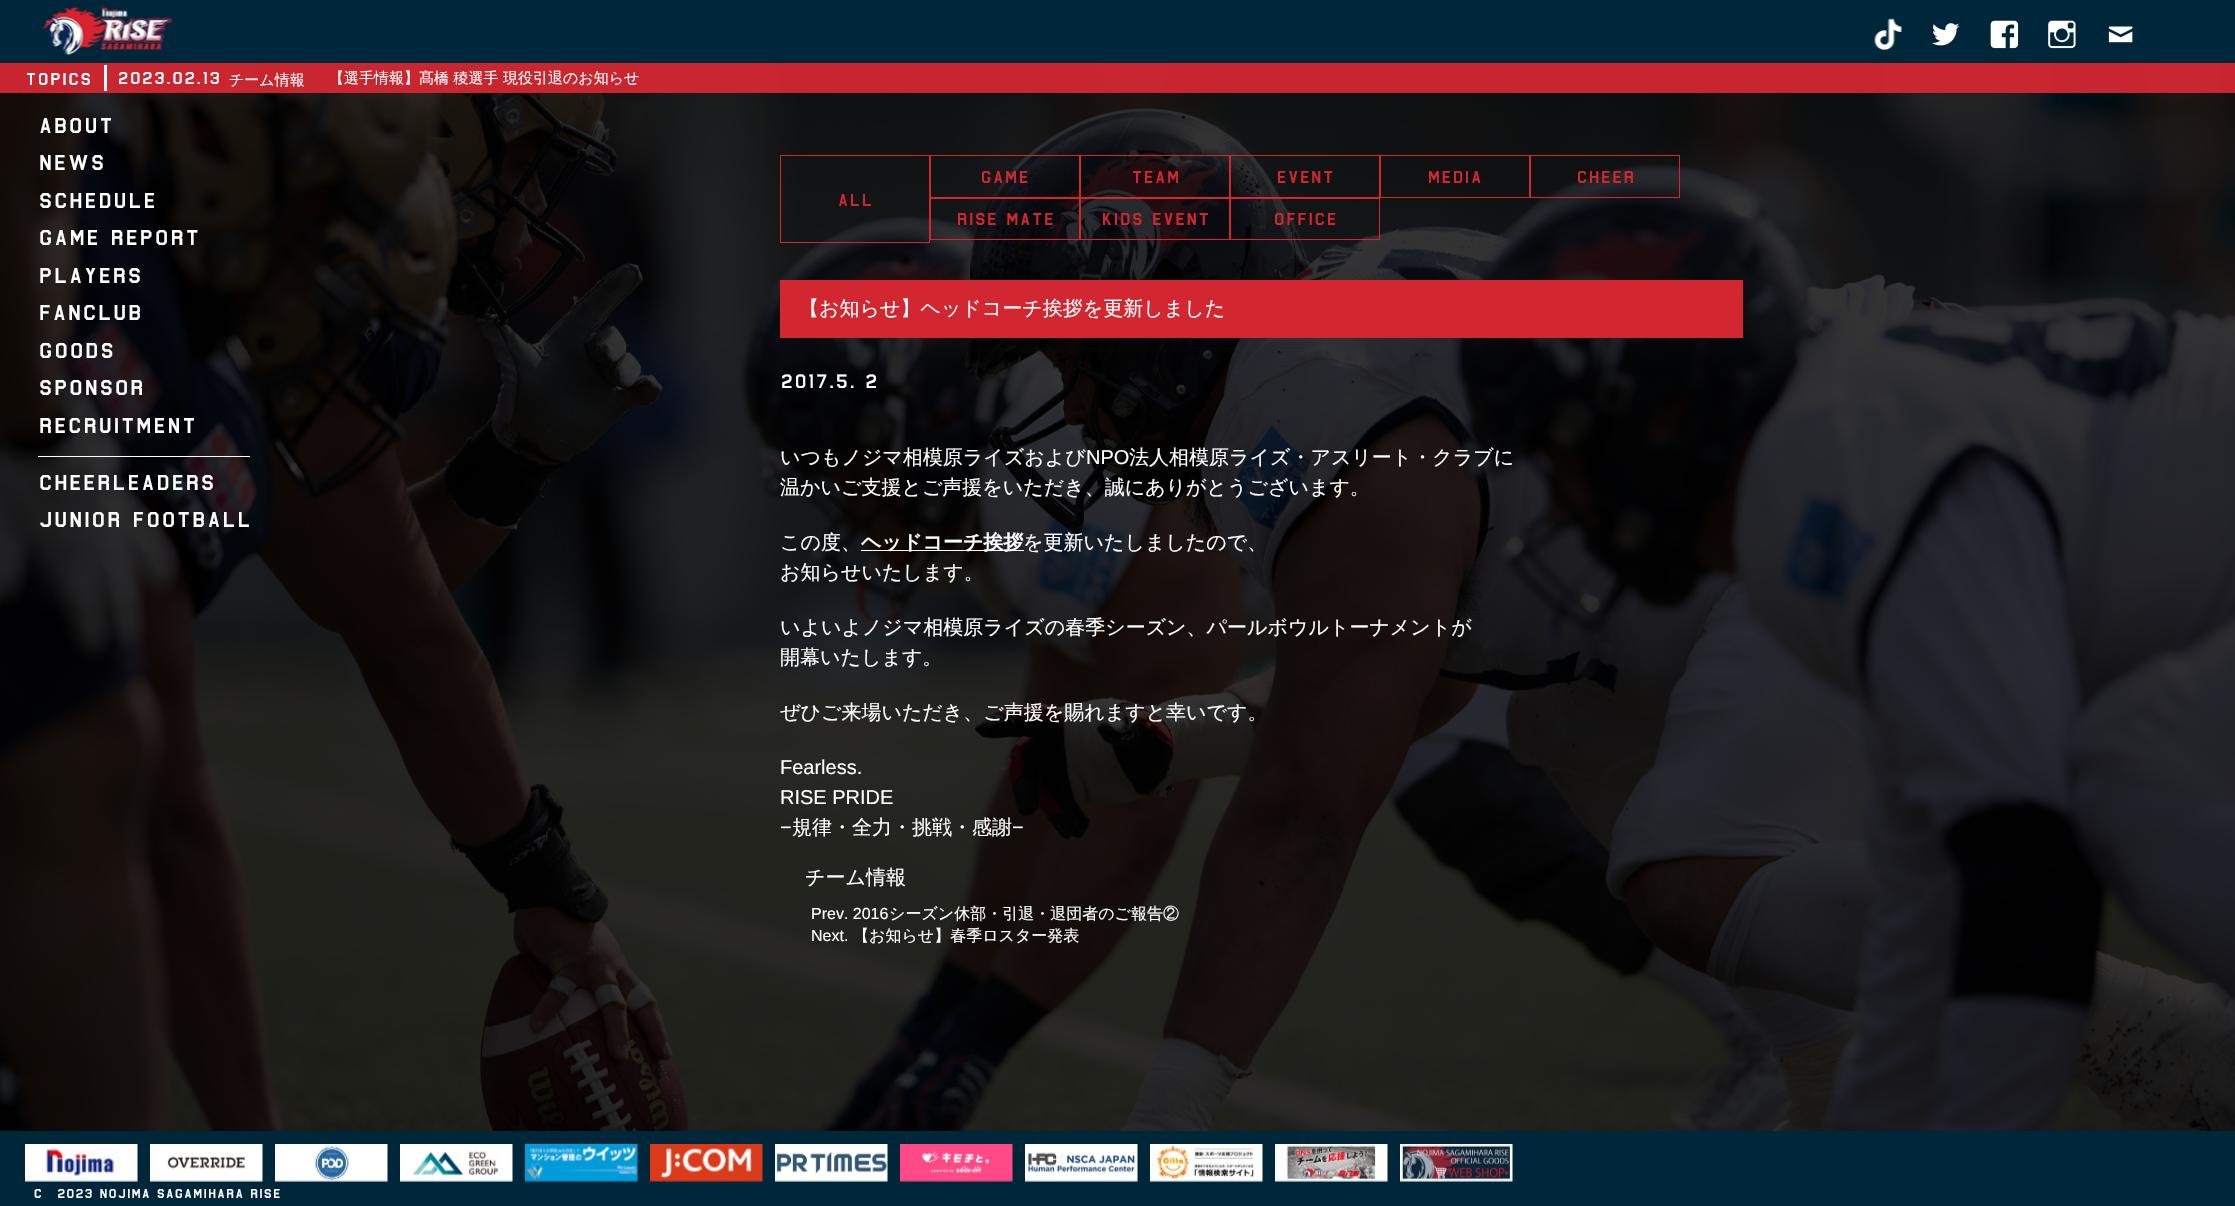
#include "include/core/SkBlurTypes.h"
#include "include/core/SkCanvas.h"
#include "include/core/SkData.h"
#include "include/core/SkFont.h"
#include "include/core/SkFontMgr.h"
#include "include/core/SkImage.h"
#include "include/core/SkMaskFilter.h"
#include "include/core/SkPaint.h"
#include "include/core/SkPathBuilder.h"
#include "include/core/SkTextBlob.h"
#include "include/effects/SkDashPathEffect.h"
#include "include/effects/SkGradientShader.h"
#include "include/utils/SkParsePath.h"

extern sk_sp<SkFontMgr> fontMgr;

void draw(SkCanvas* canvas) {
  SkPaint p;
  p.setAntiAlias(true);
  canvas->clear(SK_ColorWHITE);
  canvas->drawImageRect(SkImages::DeferredFromEncodedData(SkData::MakeFromFileName("images/1.png")), SkRect::MakeLTRB(0, 63, 2235, 1131), SkSamplingOptions());
  p.setColor(SkColorSetRGB(0, 38, 58));
  canvas->drawRect(SkRect::MakeLTRB(0, 0, 2235, 63), p);
  canvas->drawImageRect(SkImages::DeferredFromEncodedData(SkData::MakeFromFileName("images/2.png")), SkRect::MakeLTRB(42, 7, 173, 56), SkSamplingOptions());
  canvas->drawImageRect(SkImages::DeferredFromEncodedData(SkData::MakeFromFileName("images/3.png")), SkRect::MakeLTRB(1874, 18, 1902, 50), SkSamplingOptions());
  canvas->drawImageRect(SkImages::DeferredFromEncodedData(SkData::MakeFromFileName("images/4.png")), SkRect::MakeLTRB(1932, 23, 1960, 46), SkSamplingOptions());
  canvas->drawImageRect(SkImages::DeferredFromEncodedData(SkData::MakeFromFileName("images/5.png")), SkRect::MakeLTRB(1990, 20, 2019, 49), SkSamplingOptions());
  canvas->drawImageRect(SkImages::DeferredFromEncodedData(SkData::MakeFromFileName("images/6.png")), SkRect::MakeLTRB(2048, 20, 2076, 49), SkSamplingOptions());
  canvas->drawImageRect(SkImages::DeferredFromEncodedData(SkData::MakeFromFileName("images/7.png")), SkRect::MakeLTRB(2108, 26, 2133, 43), SkSamplingOptions());
  p.setColor(SkColorSetARGB(242, 210, 38, 48));
  canvas->drawRect(SkRect::MakeLTRB(0, 63, 2235, 93), p);
  p.setColor(SK_ColorWHITE);
  canvas->drawRect(SkRect::MakeLTRB(104, 65, 107, 91), p);
  canvas->drawRect(SkRect::MakeLTRB(38, 456, 250, 457), p);
  p.setStyle(SkPaint::kStroke_Style);
  p.setStrokeWidth(1);
  p.setColor(SkColorSetRGB(210, 38, 48));
  canvas->drawRect(SkRect::MakeLTRB(930.5f, 155.5f, 1079.5f, 197.5f), p);
  canvas->drawRect(SkRect::MakeLTRB(1080.5f, 155.5f, 1229.5f, 197.5f), p);
  canvas->drawRect(SkRect::MakeLTRB(1230.5f, 155.5f, 1379.5f, 197.5f), p);
  canvas->drawRect(SkRect::MakeLTRB(1380.5f, 155.5f, 1529.5f, 197.5f), p);
  canvas->drawRect(SkRect::MakeLTRB(1530.5f, 155.5f, 1679.5f, 197.5f), p);
  canvas->drawRect(SkRect::MakeLTRB(780.5f, 155.5f, 929.5f, 242.5f), p);
  canvas->drawRect(SkRect::MakeLTRB(930.5f, 198.5f, 1079.5f, 239.5f), p);
  canvas->drawRect(SkRect::MakeLTRB(1080.5f, 198.5f, 1229.5f, 239.5f), p);
  canvas->drawRect(SkRect::MakeLTRB(1230.5f, 198.5f, 1379.5f, 239.5f), p);
  p.setStyle(SkPaint::kFill_Style);
  canvas->drawRect(SkRect::MakeLTRB(780, 280, 1743, 338), p);
  p.setColor(SK_ColorWHITE);
  canvas->drawRect(SkRect::MakeLTRB(861, 550, 1024, 551), p);
  p.setColor(SkColorSetRGB(0, 38, 58));
  canvas->drawRect(SkRect::MakeLTRB(0, 1131, 2235, 1206), p);
  canvas->drawImageRect(SkImages::DeferredFromEncodedData(SkData::MakeFromFileName("images/8.png")), SkRect::MakeLTRB(25, 1144, 138, 1182), SkSamplingOptions());
  canvas->drawImageRect(SkImages::DeferredFromEncodedData(SkData::MakeFromFileName("images/9.png")), SkRect::MakeLTRB(150, 1144, 263, 1182), SkSamplingOptions());
  canvas->drawImageRect(SkImages::DeferredFromEncodedData(SkData::MakeFromFileName("images/10.png")), SkRect::MakeLTRB(275, 1144, 388, 1182), SkSamplingOptions());
  canvas->drawImageRect(SkImages::DeferredFromEncodedData(SkData::MakeFromFileName("images/11.png")), SkRect::MakeLTRB(400, 1144, 513, 1182), SkSamplingOptions());
  canvas->drawImageRect(SkImages::DeferredFromEncodedData(SkData::MakeFromFileName("images/12.png")), SkRect::MakeLTRB(525, 1144, 638, 1182), SkSamplingOptions());
  canvas->drawImageRect(SkImages::DeferredFromEncodedData(SkData::MakeFromFileName("images/13.png")), SkRect::MakeLTRB(650, 1144, 763, 1182), SkSamplingOptions());
  canvas->drawImageRect(SkImages::DeferredFromEncodedData(SkData::MakeFromFileName("images/14.png")), SkRect::MakeLTRB(775, 1144, 888, 1182), SkSamplingOptions());
  canvas->drawImageRect(SkImages::DeferredFromEncodedData(SkData::MakeFromFileName("images/15.png")), SkRect::MakeLTRB(900, 1144, 1013, 1182), SkSamplingOptions());
  canvas->drawImageRect(SkImages::DeferredFromEncodedData(SkData::MakeFromFileName("images/16.png")), SkRect::MakeLTRB(1025, 1144, 1138, 1182), SkSamplingOptions());
  canvas->drawImageRect(SkImages::DeferredFromEncodedData(SkData::MakeFromFileName("images/17.png")), SkRect::MakeLTRB(1150, 1144, 1263, 1182), SkSamplingOptions());
  canvas->drawImageRect(SkImages::DeferredFromEncodedData(SkData::MakeFromFileName("images/18.png")), SkRect::MakeLTRB(1275, 1144, 1388, 1182), SkSamplingOptions());
  canvas->drawImageRect(SkImages::DeferredFromEncodedData(SkData::MakeFromFileName("images/19.png")), SkRect::MakeLTRB(1400, 1144, 1513, 1182), SkSamplingOptions());
  SkFont font1(fontMgr->matchFamilyStyle("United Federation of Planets", SkFontStyle::Normal()), 20);
  font1.setSubpixel(true);
  p.setColor(SK_ColorWHITE);
  canvas->drawString("TOPICS", 25, 85, font1, p);
  canvas->drawString("2023.02.13", 117, 84, font1, p);
  SkFont font2(fontMgr->matchFamilyStyle("WenQuanYi Zen Hei", SkFontStyle(500, SkFontStyle::kNormal_Width, SkFontStyle::kUpright_Slant)), 15);
  font2.setSubpixel(true);
  canvas->drawString("チーム情報", 229, 85, font2, p);
  canvas->drawString("【選手情報】髙橋 稜選手 現役引退のお知らせ", 329, 83, font2, p);
  SkFont font3(fontMgr->matchFamilyStyle("United Federation of Planets", SkFontStyle::Normal()), 25);
  font3.setSubpixel(true);
  canvas->drawString("ABOUT", 38, 133, font3, p);
  canvas->drawString("NEWS", 38, 170, font3, p);
  canvas->drawString("SCHEDULE", 38, 208, font3, p);
  canvas->drawString("GAME REPORT", 38, 245, font3, p);
  canvas->drawString("PLAYERS", 38, 283, font3, p);
  canvas->drawString("FANCLUB", 38, 320, font3, p);
  canvas->drawString("GOODS", 38, 358, font3, p);
  canvas->drawString("SPONSOR", 38, 395, font3, p);
  canvas->drawString("RECRUITMENT", 38, 433, font3, p);
  canvas->drawString("CHEERLEADERS", 38, 490, font3, p);
  canvas->drawString("JUNIOR FOOTBALL", 38, 527, font3, p);
  p.setColor(SkColorSetRGB(210, 38, 48));
  canvas->drawString("GAME", 980, 183, font1, p);
  canvas->drawString("TEAM", 1131, 183, font1, p);
  canvas->drawString("EVENT", 1276, 183, font1, p);
  canvas->drawString("MEDIA", 1427, 183, font1, p);
  canvas->drawString("CHEER", 1576, 183, font1, p);
  canvas->drawString("ALL", 837, 206, font1, p);
  canvas->drawString("RISE MATE", 956, 225, font1, p);
  canvas->drawString("KIDS EVENT", 1101, 225, font1, p);
  canvas->drawString("OFFICE", 1273, 225, font1, p);
  SkFont font4(fontMgr->matchFamilyStyle("WenQuanYi Zen Hei", SkFontStyle(500, SkFontStyle::kNormal_Width, SkFontStyle::kUpright_Slant)), 20);
  font4.setSubpixel(true);
  p.setColor(SK_ColorWHITE);
  canvas->drawString("【お知らせ】ヘッドコーチ挨拶を更新しました", 799, 315, font4, p);
  SkFont font5(fontMgr->matchFamilyStyle("United Federation of Planets", SkFontStyle::Normal()), 22.5f);
  font5.setSubpixel(true);
  canvas->drawString("2017.5. 2", 780, 388, font5, p);
  canvas->drawString("いつもノジマ相模原ライズおよび", 780, 464, font4, p);
  SkFont font6(fontMgr->matchFamilyStyle("Liberation Sans", SkFontStyle::Normal()), 20);
  font6.setSubpixel(true);
  canvas->drawString("NPO", 1086, 464, font6, p);
  canvas->drawString("法人相模原ライズ・アスリート・クラブに", 1129, 464, font4, p);
  canvas->drawString("温かいご支援とご声援をいただき、誠にありがとうございます。", 780, 494, font4, p);
  canvas->drawString("この度、", 780, 549, font4, p);
  SkFont font7(fontMgr->matchFamilyStyle("WenQuanYi Zen Hei", SkFontStyle::Bold()), 20);
  font7.setSubpixel(true);
  canvas->drawString("ヘッドコーチ挨拶", 861, 549, font7, p);
  canvas->drawString("を更新いたしましたので、", 1023, 549, font4, p);
  canvas->drawString("お知らせいたします。", 780, 579, font4, p);
  canvas->drawString("いよいよノジマ相模原ライズの春季シーズン、パールボウルトーナメントが", 780, 634, font4, p);
  canvas->drawString("開幕いたします。", 780, 664, font4, p);
  canvas->drawString("ぜひご来場いただき、ご声援を賜れますと幸いです。", 780, 719, font4, p);
  canvas->drawString("Fearless.", 780, 774, font6, p);
  canvas->drawString("RISE PRIDE", 780, 804, font6, p);
  canvas->drawString("−", 780, 834, font6, p);
  canvas->drawString("規律・全力・挑戦・感謝", 792, 834, font4, p);
  canvas->drawString("−", 1012, 834, font6, p);
  canvas->drawString("チーム情報", 805, 884, font4, p);
  SkFont font8(fontMgr->matchFamilyStyle("Liberation Sans", SkFontStyle::Normal()), 16);
  font8.setSubpixel(true);
  canvas->drawString("Prev. 2016", 811, 919, font8, p);
  SkFont font9(fontMgr->matchFamilyStyle("WenQuanYi Zen Hei", SkFontStyle(500, SkFontStyle::kNormal_Width, SkFontStyle::kUpright_Slant)), 16);
  font9.setSubpixel(true);
  canvas->drawString("シーズン休部・引退・退団者のご報告②", 889, 919, font9, p);
  canvas->drawString("Next.", 811, 941, font8, p);
  canvas->drawString("【お知らせ】春季ロスター発表", 853, 941, font9, p);
  SkFont font10(fontMgr->matchFamilyStyle("United Federation of Planets", SkFontStyle::Normal()), 15);
  font10.setSubpixel(true);
  canvas->drawString("(c) 2023 NOJIMA SAGAMIHARA RISE", 25, 1198, font10, p);
}
